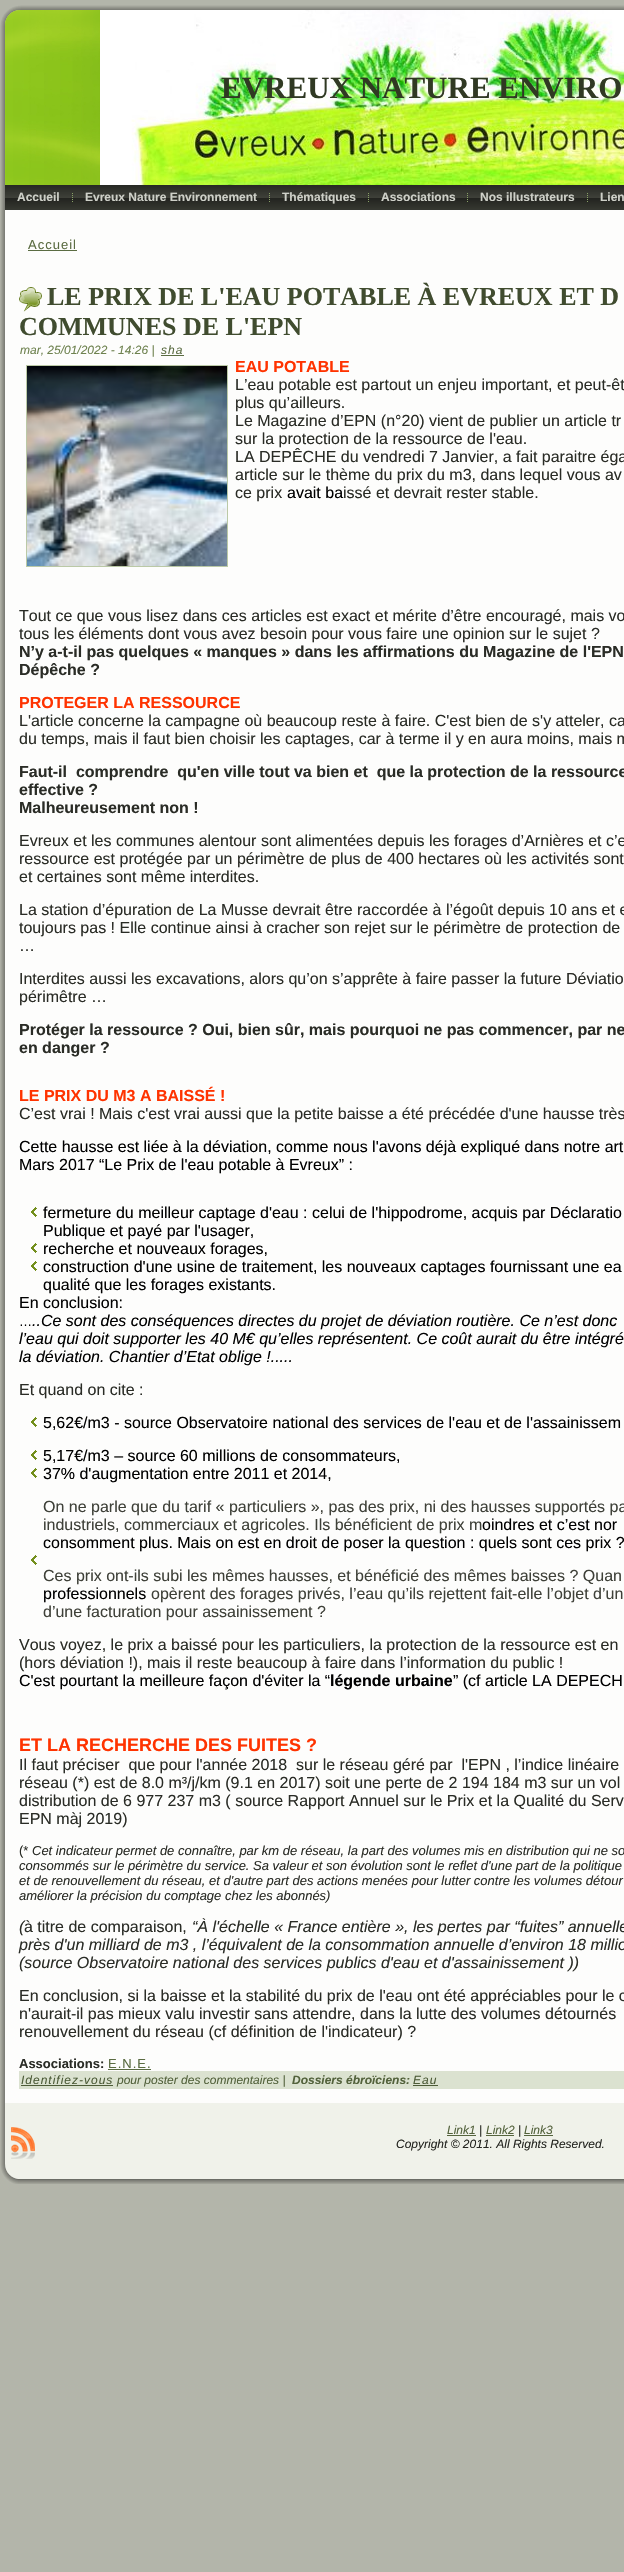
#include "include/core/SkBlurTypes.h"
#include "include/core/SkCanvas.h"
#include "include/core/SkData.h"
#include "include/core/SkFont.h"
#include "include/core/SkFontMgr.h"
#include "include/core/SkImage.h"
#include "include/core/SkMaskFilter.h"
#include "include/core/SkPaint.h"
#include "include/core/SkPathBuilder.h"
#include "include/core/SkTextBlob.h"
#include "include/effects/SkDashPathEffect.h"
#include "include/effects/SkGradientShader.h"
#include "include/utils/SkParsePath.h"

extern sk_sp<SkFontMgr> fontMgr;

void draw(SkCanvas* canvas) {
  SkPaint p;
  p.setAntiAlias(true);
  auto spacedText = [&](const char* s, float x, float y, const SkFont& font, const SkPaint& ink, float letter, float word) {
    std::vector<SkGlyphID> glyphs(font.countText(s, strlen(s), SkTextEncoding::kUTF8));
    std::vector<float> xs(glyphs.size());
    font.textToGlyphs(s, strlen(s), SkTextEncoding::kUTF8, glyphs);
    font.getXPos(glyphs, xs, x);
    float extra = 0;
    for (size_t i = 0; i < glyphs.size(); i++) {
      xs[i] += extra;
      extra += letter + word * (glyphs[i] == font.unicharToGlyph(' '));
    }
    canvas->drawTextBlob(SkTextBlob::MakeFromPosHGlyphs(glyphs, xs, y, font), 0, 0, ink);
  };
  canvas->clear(SkColorSetRGB(179, 181, 170));
  canvas->drawImageRect(SkImages::DeferredFromEncodedData(SkData::MakeFromFileName("images/1.png")), SkRect::MakeLTRB(0, 5, 35, 40), SkSamplingOptions());
  canvas->drawImageRect(SkImages::DeferredFromEncodedData(SkData::MakeFromFileName("images/2.png")), SkRect::MakeLTRB(35, 5, 624, 10), SkSamplingOptions());
  canvas->drawImageRect(SkImages::DeferredFromEncodedData(SkData::MakeFromFileName("images/3.png")), SkRect::MakeLTRB(0, 40, 35, 2149), SkSamplingOptions());
  canvas->drawImageRect(SkImages::DeferredFromEncodedData(SkData::MakeFromFileName("images/4.png")), SkRect::MakeLTRB(5, 10, 100, 185), SkSamplingOptions());
  canvas->drawImageRect(SkImages::DeferredFromEncodedData(SkData::MakeFromFileName("images/5.png")), SkRect::MakeLTRB(22, 27, 100, 168), SkSamplingOptions());
  canvas->drawImageRect(SkImages::DeferredFromEncodedData(SkData::MakeFromFileName("images/6.png")), SkRect::MakeLTRB(100, 10, 624, 185), SkSamplingOptions());
  canvas->drawImageRect(SkImages::DeferredFromEncodedData(SkData::MakeFromFileName("images/7.png")), SkRect::MakeLTRB(5, 185, 624, 210), SkSamplingOptions());
  canvas->drawImageRect(SkImages::DeferredFromEncodedData(SkData::MakeFromFileName("images/8.png")), SkRect::MakeLTRB(72, 193, 73, 202), SkSamplingOptions());
  canvas->drawImageRect(SkImages::DeferredFromEncodedData(SkData::MakeFromFileName("images/8.png")), SkRect::MakeLTRB(269, 193, 270, 202), SkSamplingOptions());
  canvas->drawImageRect(SkImages::DeferredFromEncodedData(SkData::MakeFromFileName("images/8.png")), SkRect::MakeLTRB(368, 193, 369, 202), SkSamplingOptions());
  canvas->drawImageRect(SkImages::DeferredFromEncodedData(SkData::MakeFromFileName("images/8.png")), SkRect::MakeLTRB(467, 193, 468, 202), SkSamplingOptions());
  canvas->drawImageRect(SkImages::DeferredFromEncodedData(SkData::MakeFromFileName("images/8.png")), SkRect::MakeLTRB(587, 193, 588, 202), SkSamplingOptions());
  p.setColor(SkColorSetRGB(253, 253, 252));
  canvas->drawRect(SkRect::MakeLTRB(35, 210, 624, 2103), p);
  p.setColor(SkColorSetRGB(91, 108, 66));
  canvas->drawRect(SkRect::MakeLTRB(28, 250, 77, 251), p);
  canvas->drawImageRect(SkImages::DeferredFromEncodedData(SkData::MakeFromFileName("images/9.png")), SkRect::MakeLTRB(19, 287, 42, 312), SkSamplingOptions());
  canvas->drawRect(SkRect::MakeLTRB(161, 355, 184, 356), p);
  p.setStyle(SkPaint::kStroke_Style);
  p.setStrokeWidth(1);
  p.setColor(SkColorSetRGB(187, 201, 166));
  canvas->drawRect(SkRect::MakeLTRB(26.5f, 365.5f, 227.5f, 566.5f), p);
  canvas->drawImageRect(SkImages::DeferredFromEncodedData(SkData::MakeFromFileName("images/10.png")), SkRect::MakeLTRB(27, 366, 227, 566), SkSamplingOptions());
  canvas->drawImageRect(SkImages::DeferredFromEncodedData(SkData::MakeFromFileName("images/11.png")), SkRect::MakeLTRB(31, 1207, 37, 1217), SkSamplingOptions());
  canvas->drawImageRect(SkImages::DeferredFromEncodedData(SkData::MakeFromFileName("images/11.png")), SkRect::MakeLTRB(31, 1243, 37, 1253), SkSamplingOptions());
  canvas->drawImageRect(SkImages::DeferredFromEncodedData(SkData::MakeFromFileName("images/11.png")), SkRect::MakeLTRB(31, 1261, 37, 1271), SkSamplingOptions());
  canvas->drawImageRect(SkImages::DeferredFromEncodedData(SkData::MakeFromFileName("images/11.png")), SkRect::MakeLTRB(31, 1417, 37, 1427), SkSamplingOptions());
  canvas->drawImageRect(SkImages::DeferredFromEncodedData(SkData::MakeFromFileName("images/11.png")), SkRect::MakeLTRB(31, 1450, 37, 1460), SkSamplingOptions());
  canvas->drawImageRect(SkImages::DeferredFromEncodedData(SkData::MakeFromFileName("images/11.png")), SkRect::MakeLTRB(31, 1468, 37, 1478), SkSamplingOptions());
  canvas->drawImageRect(SkImages::DeferredFromEncodedData(SkData::MakeFromFileName("images/11.png")), SkRect::MakeLTRB(31, 1555, 37, 1565), SkSamplingOptions());
  p.setStyle(SkPaint::kFill_Style);
  p.setColor(SkColorSetRGB(91, 108, 66));
  canvas->drawRect(SkRect::MakeLTRB(108, 2069, 151, 2070), p);
  p.setColor(SkColorSetRGB(219, 226, 208));
  canvas->drawRect(SkRect::MakeLTRB(19, 2071, 624, 2089), p);
  p.setColor(SkColorSetRGB(77, 92, 56));
  canvas->drawRect(SkRect::MakeLTRB(21, 2085, 113, 2086), p);
  canvas->drawRect(SkRect::MakeLTRB(413, 2085, 438, 2086), p);
  canvas->drawImageRect(SkImages::DeferredFromEncodedData(SkData::MakeFromFileName("images/14.png")), SkRect::MakeLTRB(0, 2149, 35, 2184), SkSamplingOptions());
  p.setColor(SkColorSetRGB(240, 242, 234));
  canvas->drawRect(SkRect::MakeLTRB(5, 2103, 624, 2164), p);
  canvas->drawImageRect(SkImages::DeferredFromEncodedData(SkData::MakeFromFileName("images/12.png")), SkRect::MakeLTRB(11, 2127, 35, 2159), SkSamplingOptions());
  p.setColor(SkColorSetRGB(86, 101, 62));
  canvas->drawRect(SkRect::MakeLTRB(447, 2135, 476, 2136), p);
  canvas->drawRect(SkRect::MakeLTRB(486, 2135, 514, 2136), p);
  canvas->drawRect(SkRect::MakeLTRB(524, 2135, 553, 2136), p);
  canvas->drawImageRect(SkImages::DeferredFromEncodedData(SkData::MakeFromFileName("images/13.png")), SkRect::MakeLTRB(5, 2164, 20, 2179), SkSamplingOptions());
  p.setColor(SkColorSetRGB(240, 242, 234));
  canvas->drawRect(SkRect::MakeLTRB(20, 2164, 624, 2179), p);
  canvas->drawImageRect(SkImages::DeferredFromEncodedData(SkData::MakeFromFileName("images/15.png")), SkRect::MakeLTRB(35, 2179, 624, 2184), SkSamplingOptions());
  SkFont font1(fontMgr->matchFamilyStyle("Liberation Serif", SkFontStyle::Bold()), 31);
  font1.setSubpixel(true);
  p.setColor(SkColorSetRGB(48, 57, 35));
  canvas->drawString("EVREUX NATURE ENVIRO", 221, 98, font1, p);
  SkFont font2(fontMgr->matchFamilyStyle("Liberation Sans", SkFontStyle::Bold()), 12);
  font2.setSubpixel(true);
  p.setColor(SkColorSetRGB(206, 208, 200));
  canvas->drawString("Accueil", 17, 201, font2, p);
  canvas->drawString("Evreux Nature Environnement", 85, 201, font2, p);
  canvas->drawString("Thématiques", 282, 201, font2, p);
  canvas->drawString("Associations", 381, 201, font2, p);
  canvas->drawString("Nos illustrateurs", 480, 201, font2, p);
  canvas->drawString("Lien", 600, 201, font2, p);
  SkFont font3(fontMgr->matchFamilyStyle("Liberation Sans", SkFontStyle::Normal()), 13);
  font3.setSubpixel(true);
  p.setColor(SkColorSetRGB(91, 108, 66));
  spacedText("Accueil", 28, 249, font3, p, 1, 0);
  SkFont font4(fontMgr->matchFamilyStyle("Liberation Serif", SkFontStyle::Bold()), 26);
  font4.setSubpixel(true);
  p.setColor(SkColorSetRGB(64, 76, 47));
  canvas->drawString("LE PRIX DE L'EAU POTABLE À EVREUX ET D", 47, 305, font4, p);
  canvas->drawString("COMMUNES DE L'EPN", 19, 335, font4, p);
  SkFont font5(fontMgr->matchFamilyStyle("Liberation Sans", SkFontStyle::Italic()), 12);
  font5.setSubpixel(true);
  p.setColor(SkColorSetRGB(110, 130, 79));
  canvas->drawString("mar, 25/01/2022 - 14:26 |", 20, 354, font5, p);
  p.setColor(SkColorSetRGB(91, 108, 66));
  spacedText("sha", 161, 354, font5, p, 1, 0);
  SkFont font6(fontMgr->matchFamilyStyle("Liberation Sans", SkFontStyle::Bold()), 16);
  font6.setSubpixel(true);
  p.setColor(SkColorSetRGB(255, 51, 0));
  canvas->drawString("EAU POTABLE", 235, 372, font6, p);
  SkFont font7(fontMgr->matchFamilyStyle("Liberation Sans", SkFontStyle::Normal()), 16);
  font7.setSubpixel(true);
  p.setColor(SkColorSetRGB(42, 44, 38));
  canvas->drawString("L’eau potable est partout un enjeu important, et peut-êt", 235, 390, font7, p);
  canvas->drawString("plus qu’ailleurs.", 235, 408, font7, p);
  canvas->drawString("Le Magazine d’EPN (n°20) vient de publier un article tr", 235, 426, font7, p);
  canvas->drawString("sur la protection de la ressource de l'eau.", 235, 444, font7, p);
  canvas->drawString("LA DEPÊCHE du vendredi 7 Janvier, a fait paraitre éga", 235, 462, font7, p);
  canvas->drawString("article sur le thème du prix du m3, dans lequel vous av", 235, 480, font7, p);
  canvas->drawString("ce prix", 235, 498, font7, p);
  p.setColor(SK_ColorBLACK);
  canvas->drawString("avait ba", 287, 498, font7, p);
  p.setColor(SkColorSetRGB(42, 44, 38));
  canvas->drawString("issé et devrait rester stable.", 343, 498, font7, p);
  canvas->drawString("Tout ce que vous lisez dans ces articles est exact et mérite d’être encouragé, mais vo", 19, 621, font7, p);
  canvas->drawString("tous les éléments dont vous avez besoin pour vous faire une opinion sur le sujet ?", 19, 639, font7, p);
  canvas->drawString("N’y a-t-il pas quelques « manques » dans les affirmations du Magazine de l'EPN", 19, 657, font6, p);
  canvas->drawString("Dépêche ?", 19, 675, font6, p);
  p.setColor(SkColorSetRGB(255, 51, 0));
  canvas->drawString("PROTEGER LA RESSOURCE", 19, 708, font6, p);
  p.setColor(SkColorSetRGB(42, 44, 38));
  canvas->drawString("L'article concerne la campagne où beaucoup reste à faire. C'est bien de s'y atteler, ca", 19, 726, font7, p);
  canvas->drawString("du temps, mais il faut bien choisir les captages, car à terme il y en aura moins, mais m", 19, 744, font7, p);
  canvas->drawString("Faut-il  comprendre  qu'en ville tout va bien et  que la protection de la ressource", 19, 777, font6, p);
  canvas->drawString("effective ?", 19, 795, font6, p);
  canvas->drawString("Malheureusement non !", 19, 813, font6, p);
  canvas->drawString("Evreux et les communes alentour sont alimentées depuis les forages d’Arnières et c’e", 19, 846, font7, p);
  canvas->drawString("ressource est protégée par un périmètre de plus de 400 hectares où les activités sont", 19, 864, font7, p);
  canvas->drawString("et certaines sont même interdites.", 19, 882, font7, p);
  canvas->drawString("La station d’épuration de La Musse devrait être raccordée à l’égoût depuis 10 ans et e", 19, 915, font7, p);
  canvas->drawString("toujours pas ! Elle continue ainsi à cracher son rejet sur le périmètre de protection de", 19, 933, font7, p);
  canvas->drawString("…", 19, 951, font7, p);
  canvas->drawString("Interdites aussi les excavations, alors qu’on s’apprête à faire passer la future Déviatio", 19, 984, font7, p);
  canvas->drawString("périmêtre …", 19, 1002, font7, p);
  canvas->drawString("Protéger la ressource ? Oui, bien sûr, mais pourquoi ne pas commencer, par ne", 19, 1035, font6, p);
  canvas->drawString("en danger ?", 19, 1053, font6, p);
  p.setColor(SkColorSetRGB(255, 51, 0));
  canvas->drawString("LE PRIX DU M3 A BAISSÉ !", 19, 1101, font6, p);
  p.setColor(SkColorSetRGB(42, 44, 38));
  canvas->drawString("C’est vrai ! Mais c'est vrai aussi que la petite baisse a été précédée d'une hausse très", 19, 1119, font7, p);
  p.setColor(SK_ColorBLACK);
  canvas->drawString("Cette hausse est liée à la déviation, comme nous l'avons déjà expliqué dans notre art", 19, 1152, font7, p);
  canvas->drawString("Mars 2017 “Le Prix de l'eau potable à Evreux” :", 19, 1170, font7, p);
  canvas->drawString("fermeture du meilleur captage d'eau : celui de l'hippodrome, acquis par Déclaratio", 43, 1218, font7, p);
  canvas->drawString("Publique et payé par l'usager,", 43, 1236, font7, p);
  canvas->drawString("recherche et nouveaux forages,", 43, 1254, font7, p);
  canvas->drawString("construction d'une usine de traitement, les nouveaux captages fournissant une ea", 43, 1272, font7, p);
  canvas->drawString("qualité que les forages existants.", 43, 1290, font7, p);
  canvas->drawString("En conclusion:", 19, 1308, font7, p);
  canvas->drawString("…", 19, 1326, font3, p);
  SkFont font8(fontMgr->matchFamilyStyle("Liberation Sans", SkFontStyle::Italic()), 16);
  font8.setSubpixel(true);
  canvas->drawString("..Ce sont des conséquences directes du projet de déviation routière. Ce n’est donc", 32, 1326, font8, p);
  canvas->drawString("l’eau qui doit supporter les 40 M€ qu’elles représentent. Ce coût aurait du être intégré", 19, 1344, font8, p);
  canvas->drawString("la déviation. Chantier d’Etat oblige !.....", 19, 1362, font8, p);
  p.setColor(SkColorSetRGB(42, 44, 38));
  canvas->drawString("Et quand on cite :", 19, 1395, font7, p);
  p.setColor(SK_ColorBLACK);
  canvas->drawString("5,62€/m3 - source Observatoire national des services de l'eau et de l'assainissem", 43, 1428, font7, p);
  canvas->drawString("5,17€/m3 – source 60 millions de consommateurs,", 43, 1461, font7, p);
  canvas->drawString("37% d'augmentation entre 2011 et 2014,", 43, 1479, font7, p);
  p.setColor(SkColorSetRGB(63, 65, 57));
  canvas->drawString("On ne parle que du tarif « particuliers », pas des prix, ni des hausses supportés pa", 43, 1512, font7, p);
  canvas->drawString("industriels, commerciaux et agricoles. Ils bénéficient de prix m", 43, 1530, font7, p);
  p.setColor(SK_ColorBLACK);
  canvas->drawString("oindres et c’est nor", 482, 1530, font7, p);
  canvas->drawString("consomment plus. Mais on est en droit de poser la question : quels sont ces prix ?", 43, 1548, font7, p);
  p.setColor(SkColorSetRGB(63, 65, 57));
  canvas->drawString("Ces prix ont-ils subi les mêmes hausses, et bénéficié des mêmes baisses ? Quan", 43, 1581, font7, p);
  p.setColor(SK_ColorBLACK);
  canvas->drawString("professionnels", 43, 1599, font7, p);
  p.setColor(SkColorSetRGB(63, 65, 57));
  canvas->drawString("opèrent des forages privés, l’eau qu’ils rejettent fait-elle l’objet d’un", 151, 1599, font7, p);
  canvas->drawString("d’une facturation pour assainissement ?", 43, 1617, font7, p);
  p.setColor(SkColorSetRGB(42, 44, 38));
  canvas->drawString("Vous voyez, le prix a baissé pour les particuliers, la protection de la ressource est en", 19, 1650, font7, p);
  canvas->drawString("(hors déviation !), mais il reste beaucoup à faire dans l’information du public !", 19, 1668, font7, p);
  p.setColor(SK_ColorBLACK);
  canvas->drawString("C'est pourtant la meilleure façon d'éviter la “", 19, 1686, font7, p);
  canvas->drawString("légende urbaine", 330, 1686, font6, p);
  canvas->drawString("” (cf article LA DEPECH", 453, 1686, font7, p);
  SkFont font9(fontMgr->matchFamilyStyle("Liberation Sans", SkFontStyle::Bold()), 18);
  font9.setSubpixel(true);
  p.setColor(SkColorSetRGB(255, 51, 0));
  canvas->drawString("ET LA RECHERCHE DES FUITES ?", 19, 1751, font9, p);
  p.setColor(SkColorSetRGB(42, 44, 38));
  canvas->drawString("Il faut préciser  que pour l'année 2018  sur le réseau géré par  l'EPN , l’indice linéaire", 19, 1770, font7, p);
  canvas->drawString("réseau (*) est de 8.0 m³/j/km (9.1 en 2017) soit une perte de 2 194 184 m3 sur un vol", 19, 1788, font7, p);
  canvas->drawString("distribution de 6 977 237 m3 ( source Rapport Annuel sur le Prix et la Qualité du Serv", 19, 1806, font7, p);
  canvas->drawString("EPN màj 2019)", 19, 1824, font7, p);
  canvas->drawString("(*", 19, 1855, font3, p);
  SkFont font10(fontMgr->matchFamilyStyle("Liberation Sans", SkFontStyle::Italic()), 13);
  font10.setSubpixel(true);
  canvas->drawString("Cet indicateur permet de connaître, par km de réseau, la part des volumes mis en distribution qui ne so", 32, 1855, font10, p);
  canvas->drawString("consommés sur le périmètre du service. Sa valeur et son évolution sont le reflet d'une part de la politique", 19, 1870, font10, p);
  canvas->drawString("et de renouvellement du réseau, et d'autre part des actions menées pour lutter contre les volumes détour", 19, 1885, font10, p);
  canvas->drawString("améliorer la précision du comptage chez les abonnés)", 19, 1900, font10, p);
  canvas->drawString("(", 19, 1932, font8, p);
  canvas->drawString("à titre de comparaison,", 24, 1932, font7, p);
  canvas->drawString("“À l'échelle « France entière », les pertes par “fuites” annuelle", 192, 1932, font8, p);
  canvas->drawString("près d'un milliard de m3 , l’équivalent de la consommation annuelle d’environ 18 millio", 19, 1950, font8, p);
  canvas->drawString("(source Observatoire national des services publics d'eau et d'assainissement ))", 19, 1968, font8, p);
  canvas->drawString("En conclusion, si la baisse et la stabilité du prix de l'eau ont été appréciables pour le c", 19, 2001, font7, p);
  canvas->drawString("n'aurait-il pas mieux valu investir sans attendre, dans la lutte des volumes détournés", 19, 2019, font7, p);
  canvas->drawString("renouvellement du réseau (cf définition de l'indicateur) ?", 19, 2037, font7, p);
  SkFont font11(fontMgr->matchFamilyStyle("Liberation Sans", SkFontStyle::Bold()), 13);
  font11.setSubpixel(true);
  canvas->drawString("Associations:", 19, 2068, font11, p);
  p.setColor(SkColorSetRGB(91, 108, 66));
  spacedText("E.N.E.", 108, 2068, font3, p, 1, 0);
  p.setColor(SkColorSetRGB(77, 92, 56));
  spacedText("Identifiez-vous", 21, 2084, font5, p, 1, 0);
  p.setColor(SkColorSetRGB(83, 98, 60));
  canvas->drawString("pour poster des commentaires |", 117, 2084, font5, p);
  SkFont font12(fontMgr->matchFamilyStyle("Liberation Sans", SkFontStyle::BoldItalic()), 12);
  font12.setSubpixel(true);
  canvas->drawString("Dossiers ébroïciens:", 292, 2084, font12, p);
  p.setColor(SkColorSetRGB(77, 92, 56));
  spacedText("Eau", 413, 2084, font5, p, 1, 0);
  p.setColor(SkColorSetRGB(83, 98, 60));
  canvas->drawString("Link1", 447, 2134, font5, p);
  p.setColor(SkColorSetRGB(37, 38, 33));
  canvas->drawString("|", 479, 2134, font5, p);
  p.setColor(SkColorSetRGB(83, 98, 60));
  canvas->drawString("Link2", 486, 2134, font5, p);
  p.setColor(SkColorSetRGB(37, 38, 33));
  canvas->drawString("|", 518, 2134, font5, p);
  p.setColor(SkColorSetRGB(83, 98, 60));
  canvas->drawString("Link3", 524, 2134, font5, p);
  p.setColor(SkColorSetRGB(37, 38, 33));
  canvas->drawString("Copyright © 2011. All Rights Reserved.", 396, 2148, font5, p);
}
